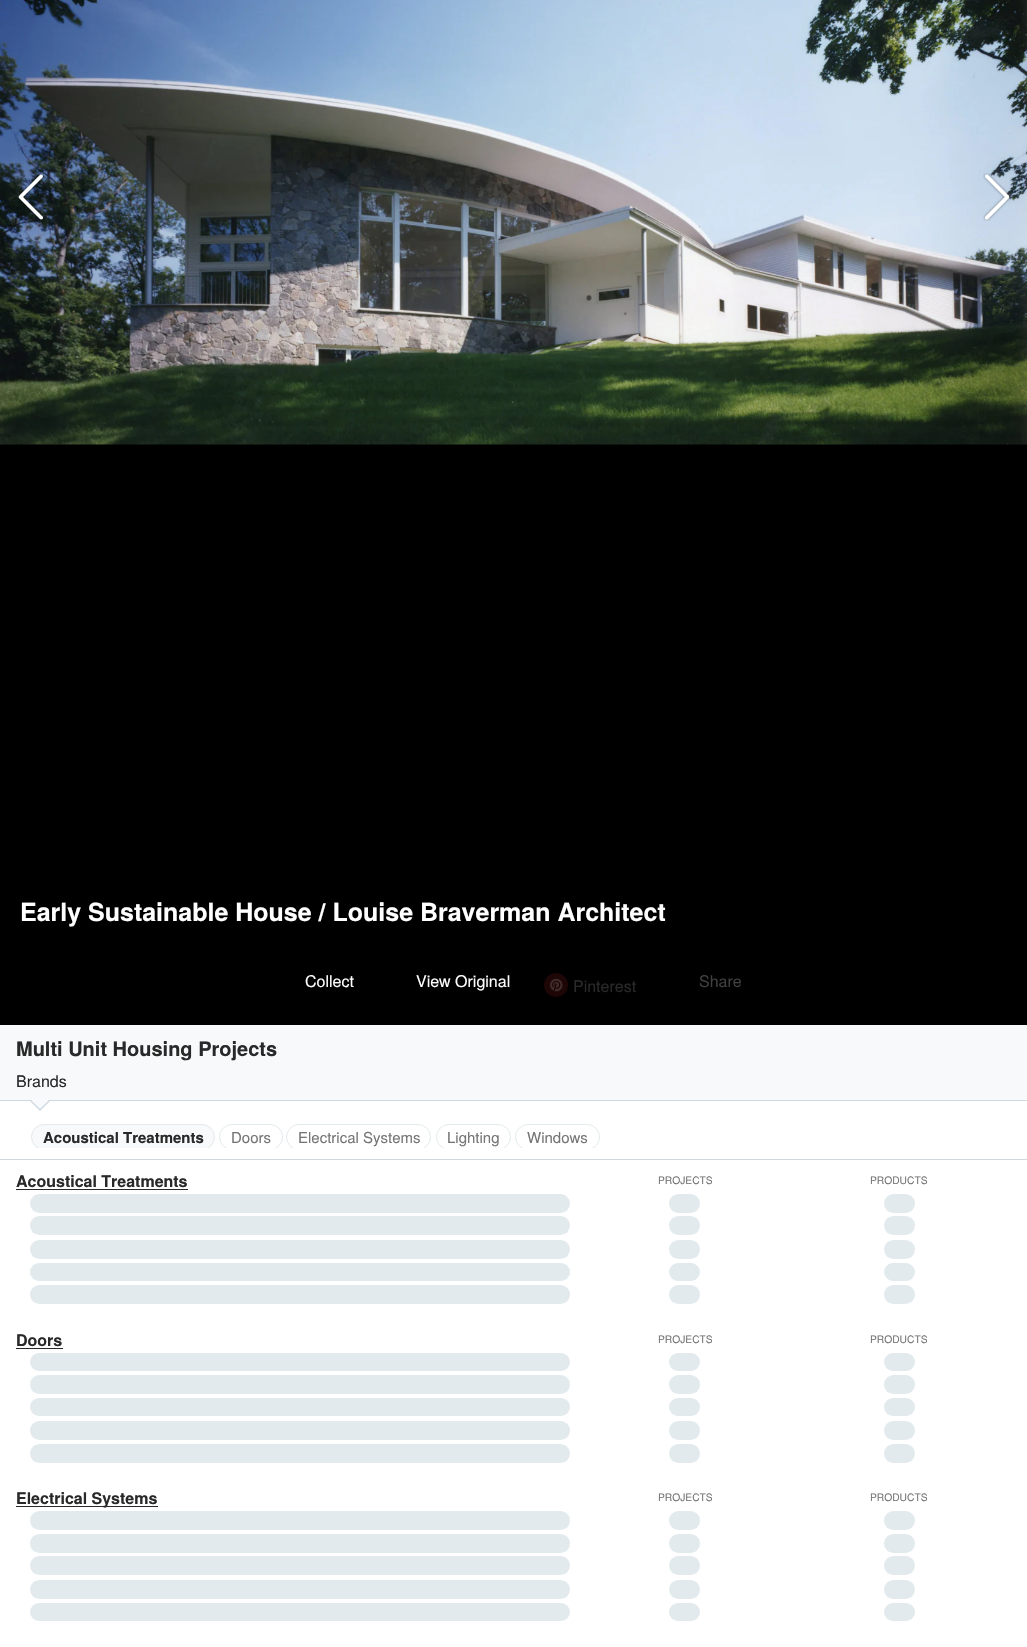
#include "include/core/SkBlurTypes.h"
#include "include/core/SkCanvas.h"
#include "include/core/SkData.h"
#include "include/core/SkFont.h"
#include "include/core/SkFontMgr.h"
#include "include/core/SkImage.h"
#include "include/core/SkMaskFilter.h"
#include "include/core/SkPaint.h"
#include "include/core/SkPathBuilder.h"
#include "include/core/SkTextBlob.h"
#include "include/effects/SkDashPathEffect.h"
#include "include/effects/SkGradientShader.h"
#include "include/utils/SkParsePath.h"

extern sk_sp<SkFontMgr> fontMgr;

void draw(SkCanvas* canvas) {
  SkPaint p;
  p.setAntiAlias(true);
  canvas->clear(SK_ColorWHITE);
  p.setColor(SK_ColorBLACK);
  canvas->drawRect(SkRect::MakeLTRB(0, 444, 1027, 1025), p);
  canvas->drawImageRect(SkImages::DeferredFromEncodedData(SkData::MakeFromFileName("images/1.png")), SkRect::MakeLTRB(0, 0, 1027, 445), SkSamplingOptions());
  canvas->drawImageRect(SkImages::DeferredFromEncodedData(SkData::MakeFromFileName("images/2.png")), SkRect::MakeLTRB(18, 173, 45, 220), SkSamplingOptions());
  canvas->drawImageRect(SkImages::DeferredFromEncodedData(SkData::MakeFromFileName("images/3.png")), SkRect::MakeLTRB(983, 173, 1011, 221), SkSamplingOptions());
  canvas->drawImageRect(SkImages::DeferredFromEncodedData(SkData::MakeFromFileName("images/4.png")), SkRect::MakeLTRB(544, 973, 568, 997), SkSamplingOptions());
  p.setColor(SkColorSetRGB(247, 249, 250));
  canvas->drawRect(SkRect::MakeLTRB(0, 1025, 1027, 1100), p);
  p.setColor(SkColorSetRGB(206, 217, 223));
  canvas->drawRect(SkRect::MakeLTRB(0, 1100, 1027, 1101), p);
  canvas->drawPath(SkPathBuilder().moveTo(29, 1100).lineTo(51, 1100).lineTo(40, 1111).close().detach(), p);
  p.setColor(SkColorSetRGB(247, 249, 250));
  canvas->drawPath(SkPathBuilder().moveTo(30, 1099).lineTo(50, 1099).lineTo(40, 1109).close().detach(), p);
  canvas->save();
  canvas->clipRect(SkRect::MakeLTRB(31, 1116, 996, 1148));
  canvas->drawRoundRect(SkRect::MakeLTRB(31.5f, 1124.5f, 214.5f, 1149.5f), 12.5f, 12.5f, p);
  p.setStyle(SkPaint::kStroke_Style);
  p.setStrokeWidth(1);
  p.setColor(SkColorSetRGB(227, 234, 237));
  canvas->drawRoundRect(SkRect::MakeLTRB(31.5f, 1124.5f, 214.5f, 1149.5f), 12.5f, 12.5f, p);
  canvas->drawRoundRect(SkRect::MakeLTRB(219.5f, 1124.5f, 282.5f, 1149.5f), 12.5f, 12.5f, p);
  canvas->drawRoundRect(SkRect::MakeLTRB(286.5f, 1124.5f, 430.5f, 1149.5f), 12.5f, 12.5f, p);
  canvas->drawRoundRect(SkRect::MakeLTRB(436.5f, 1124.5f, 510.5f, 1149.5f), 12.5f, 12.5f, p);
  canvas->drawRoundRect(SkRect::MakeLTRB(515.5f, 1124.5f, 599.5f, 1149.5f), 12.5f, 12.5f, p);
  canvas->restore();
  p.setStyle(SkPaint::kFill_Style);
  p.setColor(SkColorSetRGB(206, 217, 223));
  canvas->drawRect(SkRect::MakeLTRB(0, 1159, 1027, 1160), p);
  p.setColor(SkColorSetRGB(41, 41, 41));
  canvas->drawRect(SkRect::MakeLTRB(16, 1189, 188, 1190), p);
  p.setColor(SkColorSetRGB(227, 234, 237));
  canvas->drawRoundRect(SkRect::MakeLTRB(30, 1194, 570, 1213), 9.5f, 9.5f, p);
  canvas->drawRoundRect(SkRect::MakeLTRB(669, 1194, 700, 1213), 9.5f, 9.5f, p);
  canvas->drawRoundRect(SkRect::MakeLTRB(884, 1194, 915, 1213), 9.5f, 9.5f, p);
  canvas->drawRoundRect(SkRect::MakeLTRB(30, 1216, 570, 1235), 9.5f, 9.5f, p);
  canvas->drawRoundRect(SkRect::MakeLTRB(669, 1216, 700, 1235), 9.5f, 9.5f, p);
  canvas->drawRoundRect(SkRect::MakeLTRB(884, 1216, 915, 1235), 9.5f, 9.5f, p);
  canvas->drawRoundRect(SkRect::MakeLTRB(30, 1240, 570, 1259), 9.5f, 9.5f, p);
  canvas->drawRoundRect(SkRect::MakeLTRB(669, 1240, 700, 1259), 9.5f, 9.5f, p);
  canvas->drawRoundRect(SkRect::MakeLTRB(884, 1240, 915, 1259), 9.5f, 9.5f, p);
  canvas->drawRoundRect(SkRect::MakeLTRB(30, 1263, 570, 1281), 9, 9, p);
  canvas->drawRoundRect(SkRect::MakeLTRB(669, 1263, 700, 1281), 9, 9, p);
  canvas->drawRoundRect(SkRect::MakeLTRB(884, 1263, 915, 1281), 9, 9, p);
  canvas->drawRoundRect(SkRect::MakeLTRB(30, 1285, 570, 1304), 9.5f, 9.5f, p);
  canvas->drawRoundRect(SkRect::MakeLTRB(669, 1285, 700, 1304), 9.5f, 9.5f, p);
  canvas->drawRoundRect(SkRect::MakeLTRB(884, 1285, 915, 1304), 9.5f, 9.5f, p);
  p.setColor(SkColorSetRGB(41, 41, 41));
  canvas->drawRect(SkRect::MakeLTRB(16, 1348, 63, 1349), p);
  p.setColor(SkColorSetRGB(227, 234, 237));
  canvas->drawRoundRect(SkRect::MakeLTRB(30, 1353, 570, 1371), 9, 9, p);
  canvas->drawRoundRect(SkRect::MakeLTRB(669, 1353, 700, 1371), 9, 9, p);
  canvas->drawRoundRect(SkRect::MakeLTRB(884, 1353, 915, 1371), 9, 9, p);
  canvas->drawRoundRect(SkRect::MakeLTRB(30, 1375, 570, 1394), 9.5f, 9.5f, p);
  canvas->drawRoundRect(SkRect::MakeLTRB(669, 1375, 700, 1394), 9.5f, 9.5f, p);
  canvas->drawRoundRect(SkRect::MakeLTRB(884, 1375, 915, 1394), 9.5f, 9.5f, p);
  canvas->drawRoundRect(SkRect::MakeLTRB(30, 1398, 570, 1416), 9, 9, p);
  canvas->drawRoundRect(SkRect::MakeLTRB(669, 1398, 700, 1416), 9, 9, p);
  canvas->drawRoundRect(SkRect::MakeLTRB(884, 1398, 915, 1416), 9, 9, p);
  canvas->drawRoundRect(SkRect::MakeLTRB(30, 1421, 570, 1440), 9.5f, 9.5f, p);
  canvas->drawRoundRect(SkRect::MakeLTRB(669, 1421, 700, 1440), 9.5f, 9.5f, p);
  canvas->drawRoundRect(SkRect::MakeLTRB(884, 1421, 915, 1440), 9.5f, 9.5f, p);
  canvas->drawRoundRect(SkRect::MakeLTRB(30, 1444, 570, 1463), 9.5f, 9.5f, p);
  canvas->drawRoundRect(SkRect::MakeLTRB(669, 1444, 700, 1463), 9.5f, 9.5f, p);
  canvas->drawRoundRect(SkRect::MakeLTRB(884, 1444, 915, 1463), 9.5f, 9.5f, p);
  p.setColor(SkColorSetRGB(41, 41, 41));
  canvas->drawRect(SkRect::MakeLTRB(16, 1506, 158, 1507), p);
  p.setColor(SkColorSetRGB(227, 234, 237));
  canvas->drawRoundRect(SkRect::MakeLTRB(30, 1511, 570, 1530), 9.5f, 9.5f, p);
  canvas->drawRoundRect(SkRect::MakeLTRB(669, 1511, 700, 1530), 9.5f, 9.5f, p);
  canvas->drawRoundRect(SkRect::MakeLTRB(884, 1511, 915, 1530), 9.5f, 9.5f, p);
  canvas->drawRoundRect(SkRect::MakeLTRB(30, 1534, 570, 1553), 9.5f, 9.5f, p);
  canvas->drawRoundRect(SkRect::MakeLTRB(669, 1534, 700, 1553), 9.5f, 9.5f, p);
  canvas->drawRoundRect(SkRect::MakeLTRB(884, 1534, 915, 1553), 9.5f, 9.5f, p);
  canvas->drawRoundRect(SkRect::MakeLTRB(30, 1556, 570, 1575), 9.5f, 9.5f, p);
  canvas->drawRoundRect(SkRect::MakeLTRB(669, 1556, 700, 1575), 9.5f, 9.5f, p);
  canvas->drawRoundRect(SkRect::MakeLTRB(884, 1556, 915, 1575), 9.5f, 9.5f, p);
  canvas->drawRoundRect(SkRect::MakeLTRB(30, 1580, 570, 1599), 9.5f, 9.5f, p);
  canvas->drawRoundRect(SkRect::MakeLTRB(669, 1580, 700, 1599), 9.5f, 9.5f, p);
  canvas->drawRoundRect(SkRect::MakeLTRB(884, 1580, 915, 1599), 9.5f, 9.5f, p);
  canvas->drawRoundRect(SkRect::MakeLTRB(30, 1603, 570, 1621), 9, 9, p);
  canvas->drawRoundRect(SkRect::MakeLTRB(669, 1603, 700, 1621), 9, 9, p);
  canvas->drawRoundRect(SkRect::MakeLTRB(884, 1603, 915, 1621), 9, 9, p);
  SkFont font1(fontMgr->matchFamilyStyle("TeX Gyre Heros", SkFontStyle::Bold()), 25);
  font1.setSubpixel(true);
  p.setColor(SK_ColorWHITE);
  canvas->drawString("Early Sustainable House / Louise Braverman Architect", 20, 921, font1, p);
  SkFont font2(fontMgr->matchFamilyStyle("TeX Gyre Heros", SkFontStyle::Normal()), 16);
  font2.setSubpixel(true);
  canvas->drawString("Collect", 305, 987, font2, p);
  canvas->drawString("View Original", 416, 987, font2, p);
  p.setColor(SkColorSetRGB(41, 41, 41));
  canvas->drawString("Pinterest", 573, 992, font2, p);
  p.setColor(SkColorSetRGB(64, 64, 64));
  canvas->drawString("Share", 699, 987, font2, p);
  SkFont font3(fontMgr->matchFamilyStyle("TeX Gyre Heros", SkFontStyle::Bold()), 20);
  font3.setSubpixel(true);
  p.setColor(SkColorSetRGB(41, 41, 41));
  canvas->drawString("Multi Unit Housing Projects", 16, 1056, font3, p);
  canvas->drawString("Brands", 16, 1087, font2, p);
  SkFont font4(fontMgr->matchFamilyStyle("TeX Gyre Heros", SkFontStyle::Bold()), 15);
  font4.setSubpixel(true);
  canvas->drawString("Acoustical Treatments", 43, 1143, font4, p);
  SkFont font5(fontMgr->matchFamilyStyle("TeX Gyre Heros", SkFontStyle::Normal()), 15);
  font5.setSubpixel(true);
  p.setColor(SkColorSetRGB(117, 117, 117));
  canvas->drawString("Doors", 231, 1143, font5, p);
  canvas->drawString("Electrical Systems", 298, 1143, font5, p);
  canvas->drawString("Lighting", 447, 1143, font5, p);
  canvas->drawString("Windows", 527, 1143, font5, p);
  SkFont font6(fontMgr->matchFamilyStyle("TeX Gyre Heros", SkFontStyle::Bold()), 16);
  font6.setSubpixel(true);
  p.setColor(SkColorSetRGB(41, 41, 41));
  canvas->drawString("Acoustical Treatments", 16, 1187, font6, p);
  SkFont font7(fontMgr->matchFamilyStyle("TeX Gyre Heros", SkFontStyle::Normal()), 10.25f);
  font7.setSubpixel(true);
  p.setColor(SkColorSetRGB(117, 117, 117));
  canvas->drawString("PROJECTS", 658, 1184, font7, p);
  canvas->drawString("PRODUCTS", 870, 1184, font7, p);
  p.setColor(SkColorSetRGB(41, 41, 41));
  canvas->drawString("Doors", 16, 1346, font6, p);
  p.setColor(SkColorSetRGB(117, 117, 117));
  canvas->drawString("PROJECTS", 658, 1343, font7, p);
  canvas->drawString("PRODUCTS", 870, 1343, font7, p);
  p.setColor(SkColorSetRGB(41, 41, 41));
  canvas->drawString("Electrical Systems", 16, 1504, font6, p);
  p.setColor(SkColorSetRGB(117, 117, 117));
  canvas->drawString("PROJECTS", 658, 1501, font7, p);
  canvas->drawString("PRODUCTS", 870, 1501, font7, p);
}
